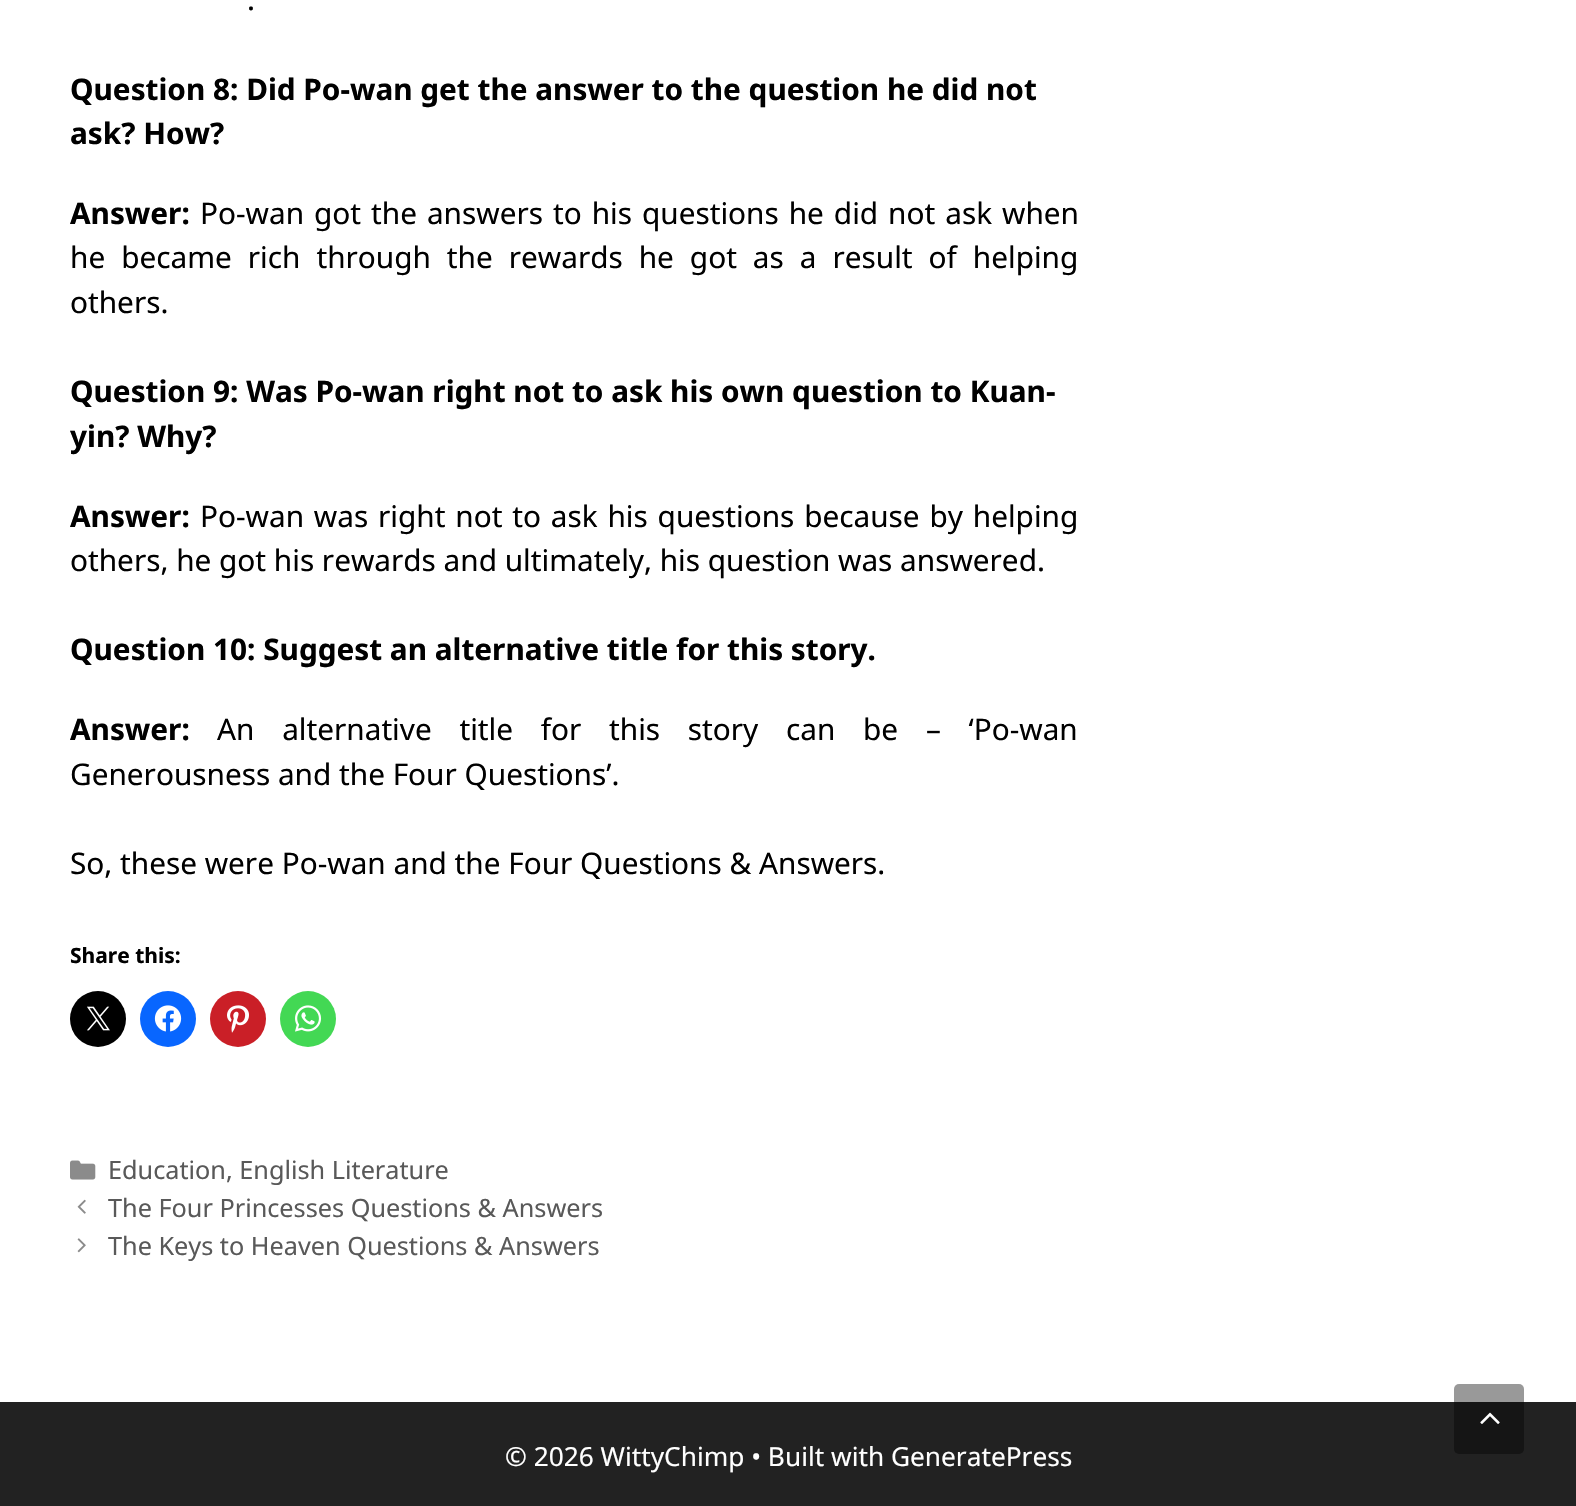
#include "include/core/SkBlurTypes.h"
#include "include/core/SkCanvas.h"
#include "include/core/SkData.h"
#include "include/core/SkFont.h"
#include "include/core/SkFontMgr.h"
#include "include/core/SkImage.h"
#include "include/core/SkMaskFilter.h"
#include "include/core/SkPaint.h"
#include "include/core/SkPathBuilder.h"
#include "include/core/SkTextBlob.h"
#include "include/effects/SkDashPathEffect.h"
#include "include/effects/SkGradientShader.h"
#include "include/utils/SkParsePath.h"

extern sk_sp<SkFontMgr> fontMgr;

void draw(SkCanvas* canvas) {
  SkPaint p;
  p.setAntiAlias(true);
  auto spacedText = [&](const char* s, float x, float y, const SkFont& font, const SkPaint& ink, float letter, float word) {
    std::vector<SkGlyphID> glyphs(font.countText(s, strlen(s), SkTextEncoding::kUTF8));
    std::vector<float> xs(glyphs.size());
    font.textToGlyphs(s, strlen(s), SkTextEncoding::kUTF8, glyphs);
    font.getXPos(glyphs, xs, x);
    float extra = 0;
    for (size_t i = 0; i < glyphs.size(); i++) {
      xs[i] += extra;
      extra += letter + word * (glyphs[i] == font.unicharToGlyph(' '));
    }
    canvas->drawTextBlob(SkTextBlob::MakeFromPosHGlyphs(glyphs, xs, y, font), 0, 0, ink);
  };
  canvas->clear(SK_ColorWHITE);
  p.setColor(SK_ColorBLACK);
  canvas->drawCircle(98, 1019, 28, p);
  canvas->drawImageRect(SkImages::DeferredFromEncodedData(SkData::MakeFromFileName("images/1.png")), SkRect::MakeLTRB(87, 1006, 110, 1031), SkSamplingOptions());
  p.setColor(SkColorSetRGB(8, 102, 255));
  canvas->drawCircle(168, 1019, 28, p);
  canvas->drawImageRect(SkImages::DeferredFromEncodedData(SkData::MakeFromFileName("images/2.png")), SkRect::MakeLTRB(154, 1005, 182, 1032), SkSamplingOptions());
  p.setColor(SkColorSetRGB(202, 31, 39));
  canvas->drawCircle(238, 1019, 28, p);
  canvas->drawImageRect(SkImages::DeferredFromEncodedData(SkData::MakeFromFileName("images/3.png")), SkRect::MakeLTRB(227, 1005, 249, 1033), SkSamplingOptions());
  p.setColor(SkColorSetRGB(67, 216, 84));
  canvas->drawCircle(308, 1019, 28, p);
  canvas->drawImageRect(SkImages::DeferredFromEncodedData(SkData::MakeFromFileName("images/4.png")), SkRect::MakeLTRB(295, 1005, 322, 1032), SkSamplingOptions());
  canvas->drawImageRect(SkImages::DeferredFromEncodedData(SkData::MakeFromFileName("images/5.png")), SkRect::MakeLTRB(70, 1160, 96, 1180), SkSamplingOptions());
  canvas->drawImageRect(SkImages::DeferredFromEncodedData(SkData::MakeFromFileName("images/6.png")), SkRect::MakeLTRB(77, 1199, 86, 1214), SkSamplingOptions());
  canvas->drawImageRect(SkImages::DeferredFromEncodedData(SkData::MakeFromFileName("images/7.png")), SkRect::MakeLTRB(77, 1238, 86, 1253), SkSamplingOptions());
  p.setColor(SkColorSetRGB(34, 34, 34));
  canvas->drawRect(SkRect::MakeLTRB(0, 1402, 1576, 1506), p);
  p.setColor(SkColorSetARGB(102, 0, 0, 0));
  canvas->drawRoundRect(SkRect::MakeLTRB(1454, 1384, 1524, 1454), 5, 5, p);
  canvas->drawImageRect(SkImages::DeferredFromEncodedData(SkData::MakeFromFileName("images/8.png")), SkRect::MakeLTRB(1480, 1412, 1500, 1424), SkSamplingOptions());
  SkFont font1(fontMgr->matchFamilyStyle("Noto Sans", SkFontStyle::Normal()), 29.75f);
  font1.setSubpixel(true);
  p.setColor(SK_ColorBLACK);
  canvas->drawString(".", 247, 10, font1, p);
  SkFont font2(fontMgr->matchFamilyStyle("Noto Sans", SkFontStyle::Bold()), 29.75f);
  font2.setSubpixel(true);
  canvas->drawString("Question 8: Did Po-wan get the answer to the question he did not", 70, 100, font2, p);
  canvas->drawString("ask? How?", 70, 144, font2, p);
  canvas->drawString("Answer:", 70, 224, font2, p);
  spacedText("Po-wan got the answers to his questions he did not ask when", 200, 224, font1, p, 0, 2.25f);
  spacedText("he became rich through the rewards he got as a result of helping", 70, 268, font1, p, 0, 8.25f);
  canvas->drawString("others.", 70, 313, font1, p);
  canvas->drawString("Question 9: Was Po-wan right not to ask his own question to Kuan-", 70, 402, font2, p);
  canvas->drawString("yin? Why?", 70, 447, font2, p);
  canvas->drawString("Answer:", 70, 527, font2, p);
  spacedText("Po-wan was right not to ask his questions because by helping", 200, 527, font1, p, 0, 2.1f);
  canvas->drawString("others, he got his rewards and ultimately, his question was answered.", 70, 571, font1, p);
  canvas->drawString("Question 10: Suggest an alternative title for this story.", 70, 660, font2, p);
  canvas->drawString("Answer:", 70, 740, font2, p);
  spacedText("An alternative title for this story can be – ‘Po-wan", 217, 740, font1, p, 0, 20);
  canvas->drawString("Generousness and the Four Questions’.", 70, 785, font1, p);
  canvas->drawString("So, these were Po-wan and the Four Questions & Answers.", 70, 874, font1, p);
  SkFont font3(fontMgr->matchFamilyStyle("Noto Sans", SkFontStyle::Bold()), 21);
  font3.setSubpixel(true);
  canvas->drawString("Share this:", 70, 963, font3, p);
  SkFont font4(fontMgr->matchFamilyStyle("Noto Sans", SkFontStyle::Normal()), 25.25f);
  font4.setSubpixel(true);
  p.setColor(SkColorSetRGB(89, 89, 89));
  canvas->drawString("Education, English Literature", 108, 1179, font4, p);
  canvas->drawString("The Four Princesses Questions & Answers", 108, 1217, font4, p);
  canvas->drawString("The Keys to Heaven Questions & Answers", 108, 1255, font4, p);
  SkFont font5(fontMgr->matchFamilyStyle("Noto Sans", SkFontStyle::Normal()), 26.25f);
  font5.setSubpixel(true);
  p.setColor(SK_ColorWHITE);
  canvas->drawString("© 2026 WittyChimp • Built with GeneratePress", 505, 1466, font5, p);
}
